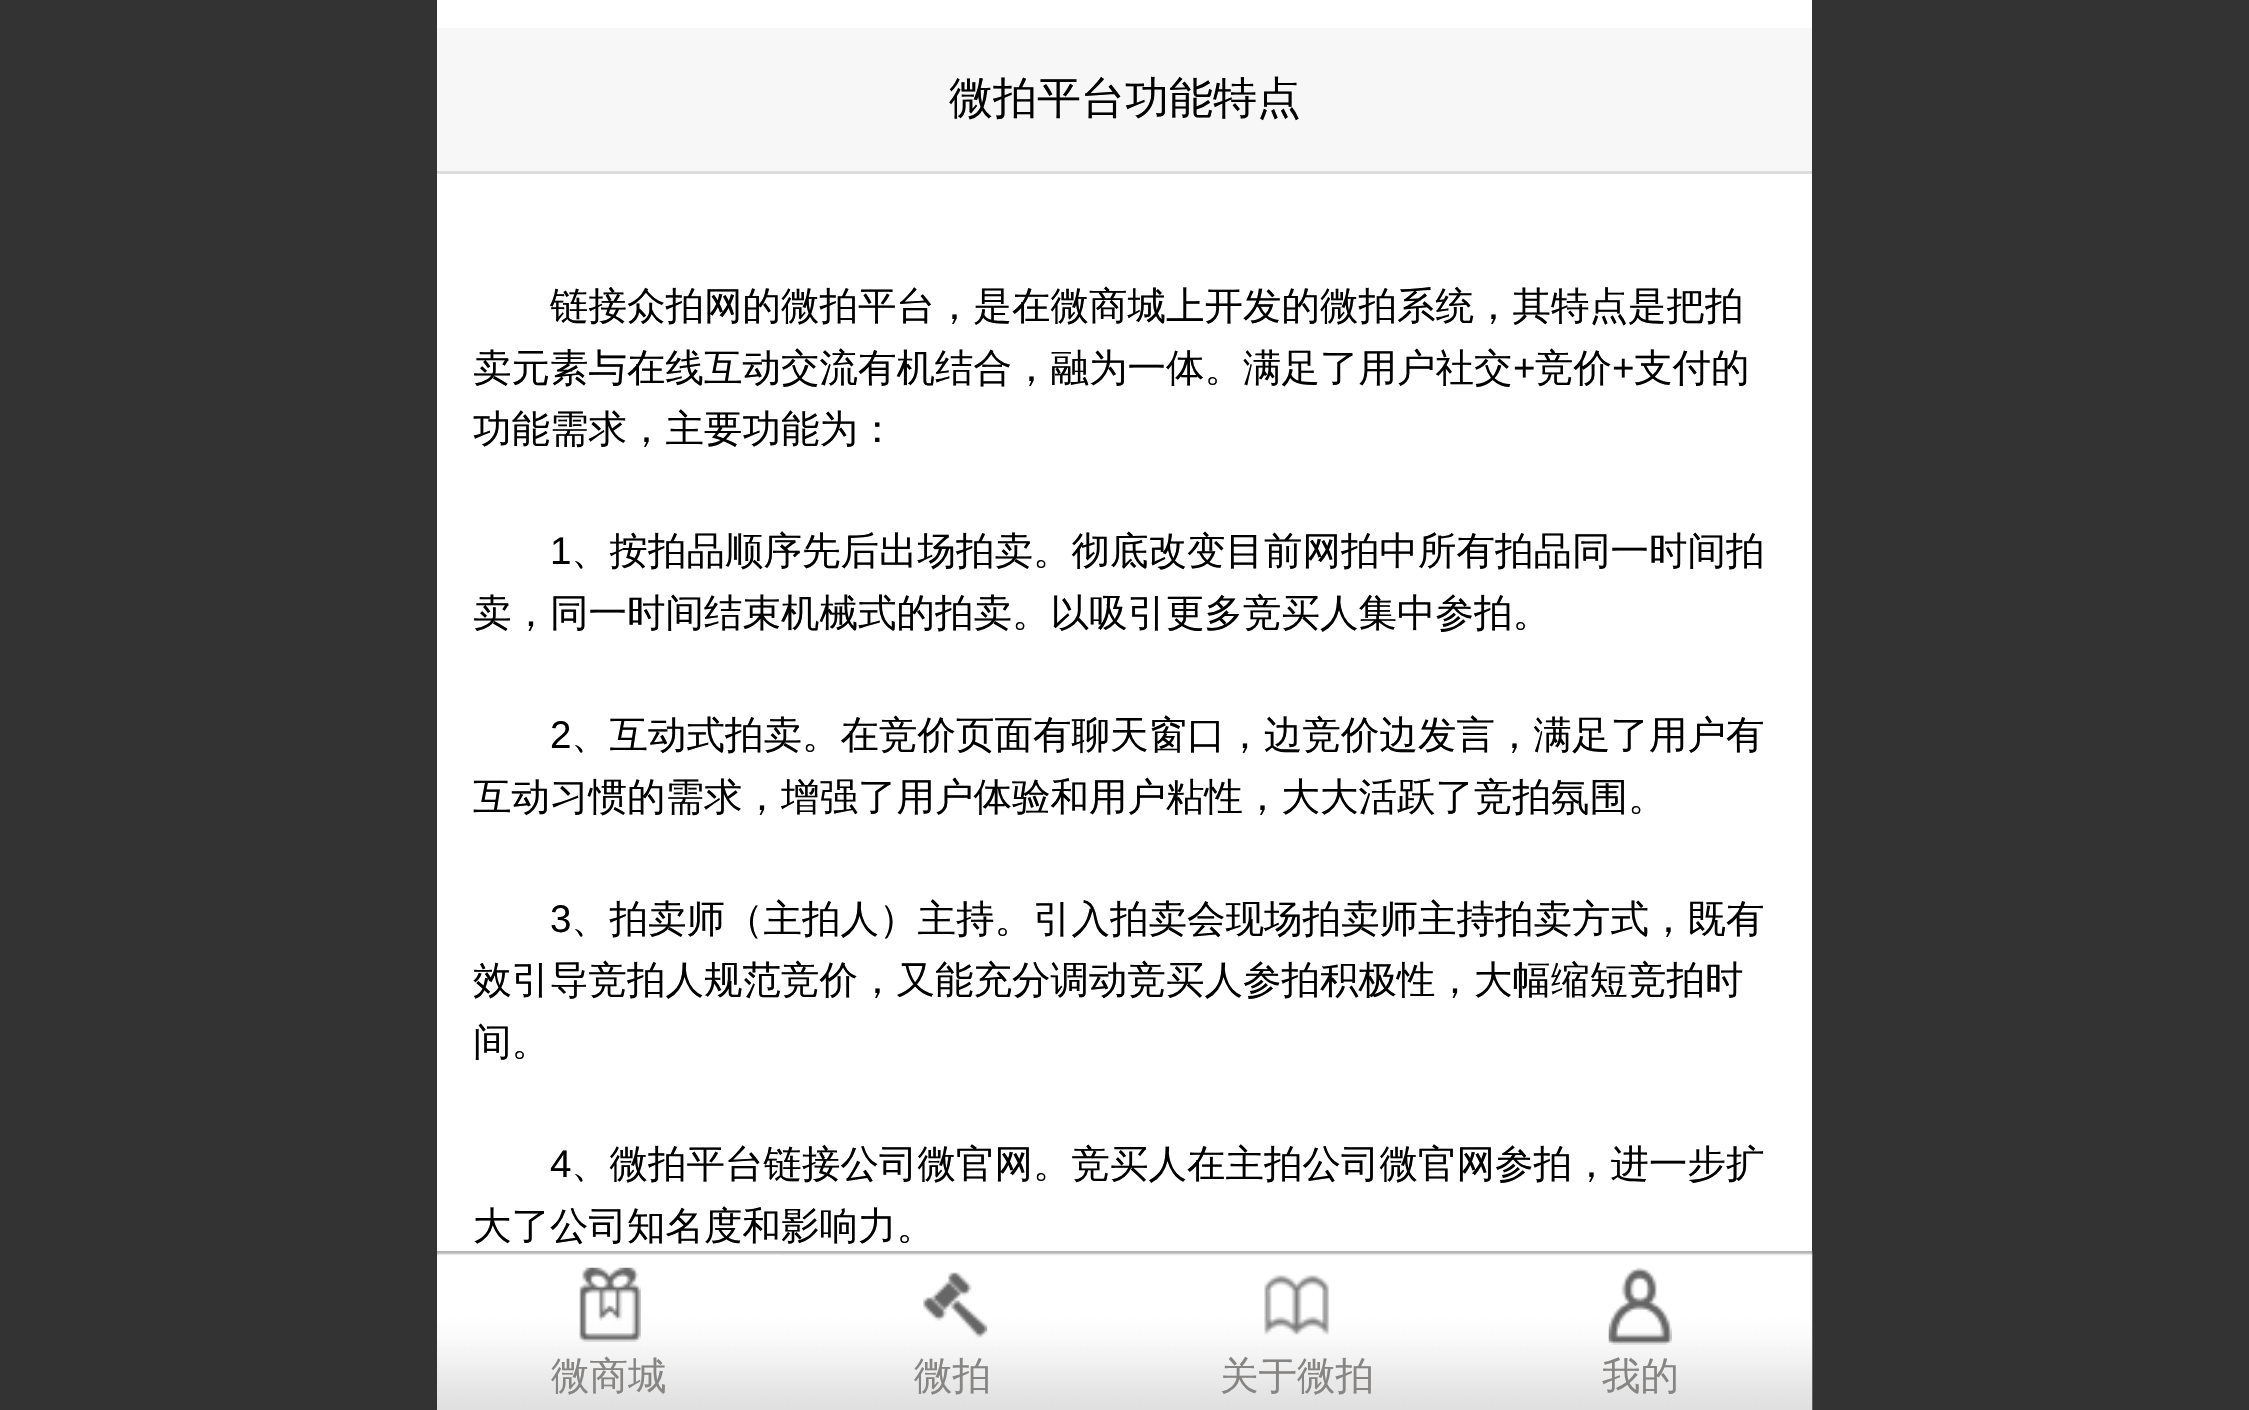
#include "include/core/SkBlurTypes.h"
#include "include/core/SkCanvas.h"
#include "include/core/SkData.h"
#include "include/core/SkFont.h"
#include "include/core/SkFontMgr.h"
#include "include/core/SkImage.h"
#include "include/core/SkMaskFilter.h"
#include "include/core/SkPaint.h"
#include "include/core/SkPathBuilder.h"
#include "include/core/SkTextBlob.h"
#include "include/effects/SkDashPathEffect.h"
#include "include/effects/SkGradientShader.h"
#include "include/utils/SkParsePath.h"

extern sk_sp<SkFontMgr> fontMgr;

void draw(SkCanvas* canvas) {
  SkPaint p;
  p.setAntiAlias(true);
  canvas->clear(SkColorSetRGB(51, 51, 51));
  p.setColor(SK_ColorWHITE);
  canvas->drawRect(SkRect::MakeLTRB(437, 0, 1812, 1251), p);
  p.setColor(SkColorSetRGB(247, 247, 247));
  canvas->drawRect(SkRect::MakeLTRB(437, 28, 1812, 171), p);
  p.setColor(SkColorSetRGB(221, 221, 221));
  canvas->drawRect(SkRect::MakeLTRB(437, 171, 1812, 174), p);
  canvas->drawImageRect(SkImages::DeferredFromEncodedData(SkData::MakeFromFileName("images/1.png")), SkRect::MakeLTRB(437, 1251, 1812, 1410), SkSamplingOptions());
  p.setColor(SK_ColorWHITE);
  canvas->drawRect(SkRect::MakeLTRB(438, 1255, 781, 1256), p);
  canvas->drawImageRect(SkImages::DeferredFromEncodedData(SkData::MakeFromFileName("images/2.png")), SkRect::MakeLTRB(579, 1267, 641, 1342), SkSamplingOptions());
  canvas->drawImageRect(SkImages::DeferredFromEncodedData(SkData::MakeFromFileName("images/3.png")), SkRect::MakeLTRB(923, 1272, 988, 1338), SkSamplingOptions());
  canvas->drawImageRect(SkImages::DeferredFromEncodedData(SkData::MakeFromFileName("images/4.png")), SkRect::MakeLTRB(1264, 1275, 1330, 1335), SkSamplingOptions());
  canvas->drawImageRect(SkImages::DeferredFromEncodedData(SkData::MakeFromFileName("images/5.png")), SkRect::MakeLTRB(1812, 1251, 1813, 1410), SkSamplingOptions());
  canvas->drawImageRect(SkImages::DeferredFromEncodedData(SkData::MakeFromFileName("images/6.png")), SkRect::MakeLTRB(1608, 1267, 1672, 1345), SkSamplingOptions());
  SkFont font1(fontMgr->matchFamilyStyle("WenQuanYi Zen Hei", SkFontStyle(500, SkFontStyle::kNormal_Width, SkFontStyle::kUpright_Slant)), 44);
  font1.setSubpixel(true);
  p.setColor(SK_ColorBLACK);
  canvas->drawString("微拍平台功能特点", 949, 113, font1, p);
  SkFont font2(fontMgr->matchFamilyStyle("WenQuanYi Zen Hei", SkFontStyle(500, SkFontStyle::kNormal_Width, SkFontStyle::kUpright_Slant)), 38.5f);
  font2.setSubpixel(true);
  canvas->drawString("链接众拍网的微拍平台，是在微商城上开发的微拍系统，其特点是把拍", 550, 319, font2, p);
  canvas->drawString("卖元素与在线互动交流有机结合，融为一体。满足了用户社交", 473, 381, font2, p);
  SkFont font3(fontMgr->matchFamilyStyle("Liberation Sans", SkFontStyle::Normal()), 38.5f);
  font3.setSubpixel(true);
  canvas->drawString("+", 1513, 381, font3, p);
  canvas->drawString("竞价", 1535, 381, font2, p);
  canvas->drawString("+", 1612, 381, font3, p);
  canvas->drawString("支付的", 1634, 381, font2, p);
  canvas->drawString("功能需求，主要功能为：", 473, 442, font2, p);
  canvas->drawString("1", 550, 564, font3, p);
  canvas->drawString("、按拍品顺序先后出场拍卖。彻底改变目前网拍中所有拍品同一时间拍", 571, 564, font2, p);
  canvas->drawString("卖，同一时间结束机械式的拍卖。以吸引更多竞买人集中参拍。", 473, 626, font2, p);
  canvas->drawString("2", 550, 748, font3, p);
  canvas->drawString("、互动式拍卖。在竞价页面有聊天窗口，边竞价边发言，满足了用户有", 571, 748, font2, p);
  canvas->drawString("互动习惯的需求，增强了用户体验和用户粘性，大大活跃了竞拍氛围。", 473, 810, font2, p);
  canvas->drawString("3", 550, 932, font3, p);
  canvas->drawString("、拍卖师（主拍人）主持。引入拍卖会现场拍卖师主持拍卖方式，既有", 571, 932, font2, p);
  canvas->drawString("效引导竞拍人规范竞价，又能充分调动竞买人参拍积极性，大幅缩短竞拍时", 473, 993, font2, p);
  canvas->drawString("间。", 473, 1055, font2, p);
  canvas->drawString("4", 550, 1177, font3, p);
  canvas->drawString("、微拍平台链接公司微官网。竞买人在主拍公司微官网参拍，进一步扩", 571, 1177, font2, p);
  canvas->drawString("大了公司知名度和影响力。", 473, 1239, font2, p);
  p.setColor(SkColorSetRGB(134, 133, 131));
  canvas->drawString("微商城", 551, 1389, font2, p);
  canvas->drawString("微拍", 914, 1389, font2, p);
  canvas->drawString("关于微拍", 1220, 1389, font2, p);
  canvas->drawString("我的", 1602, 1389, font2, p);
}
